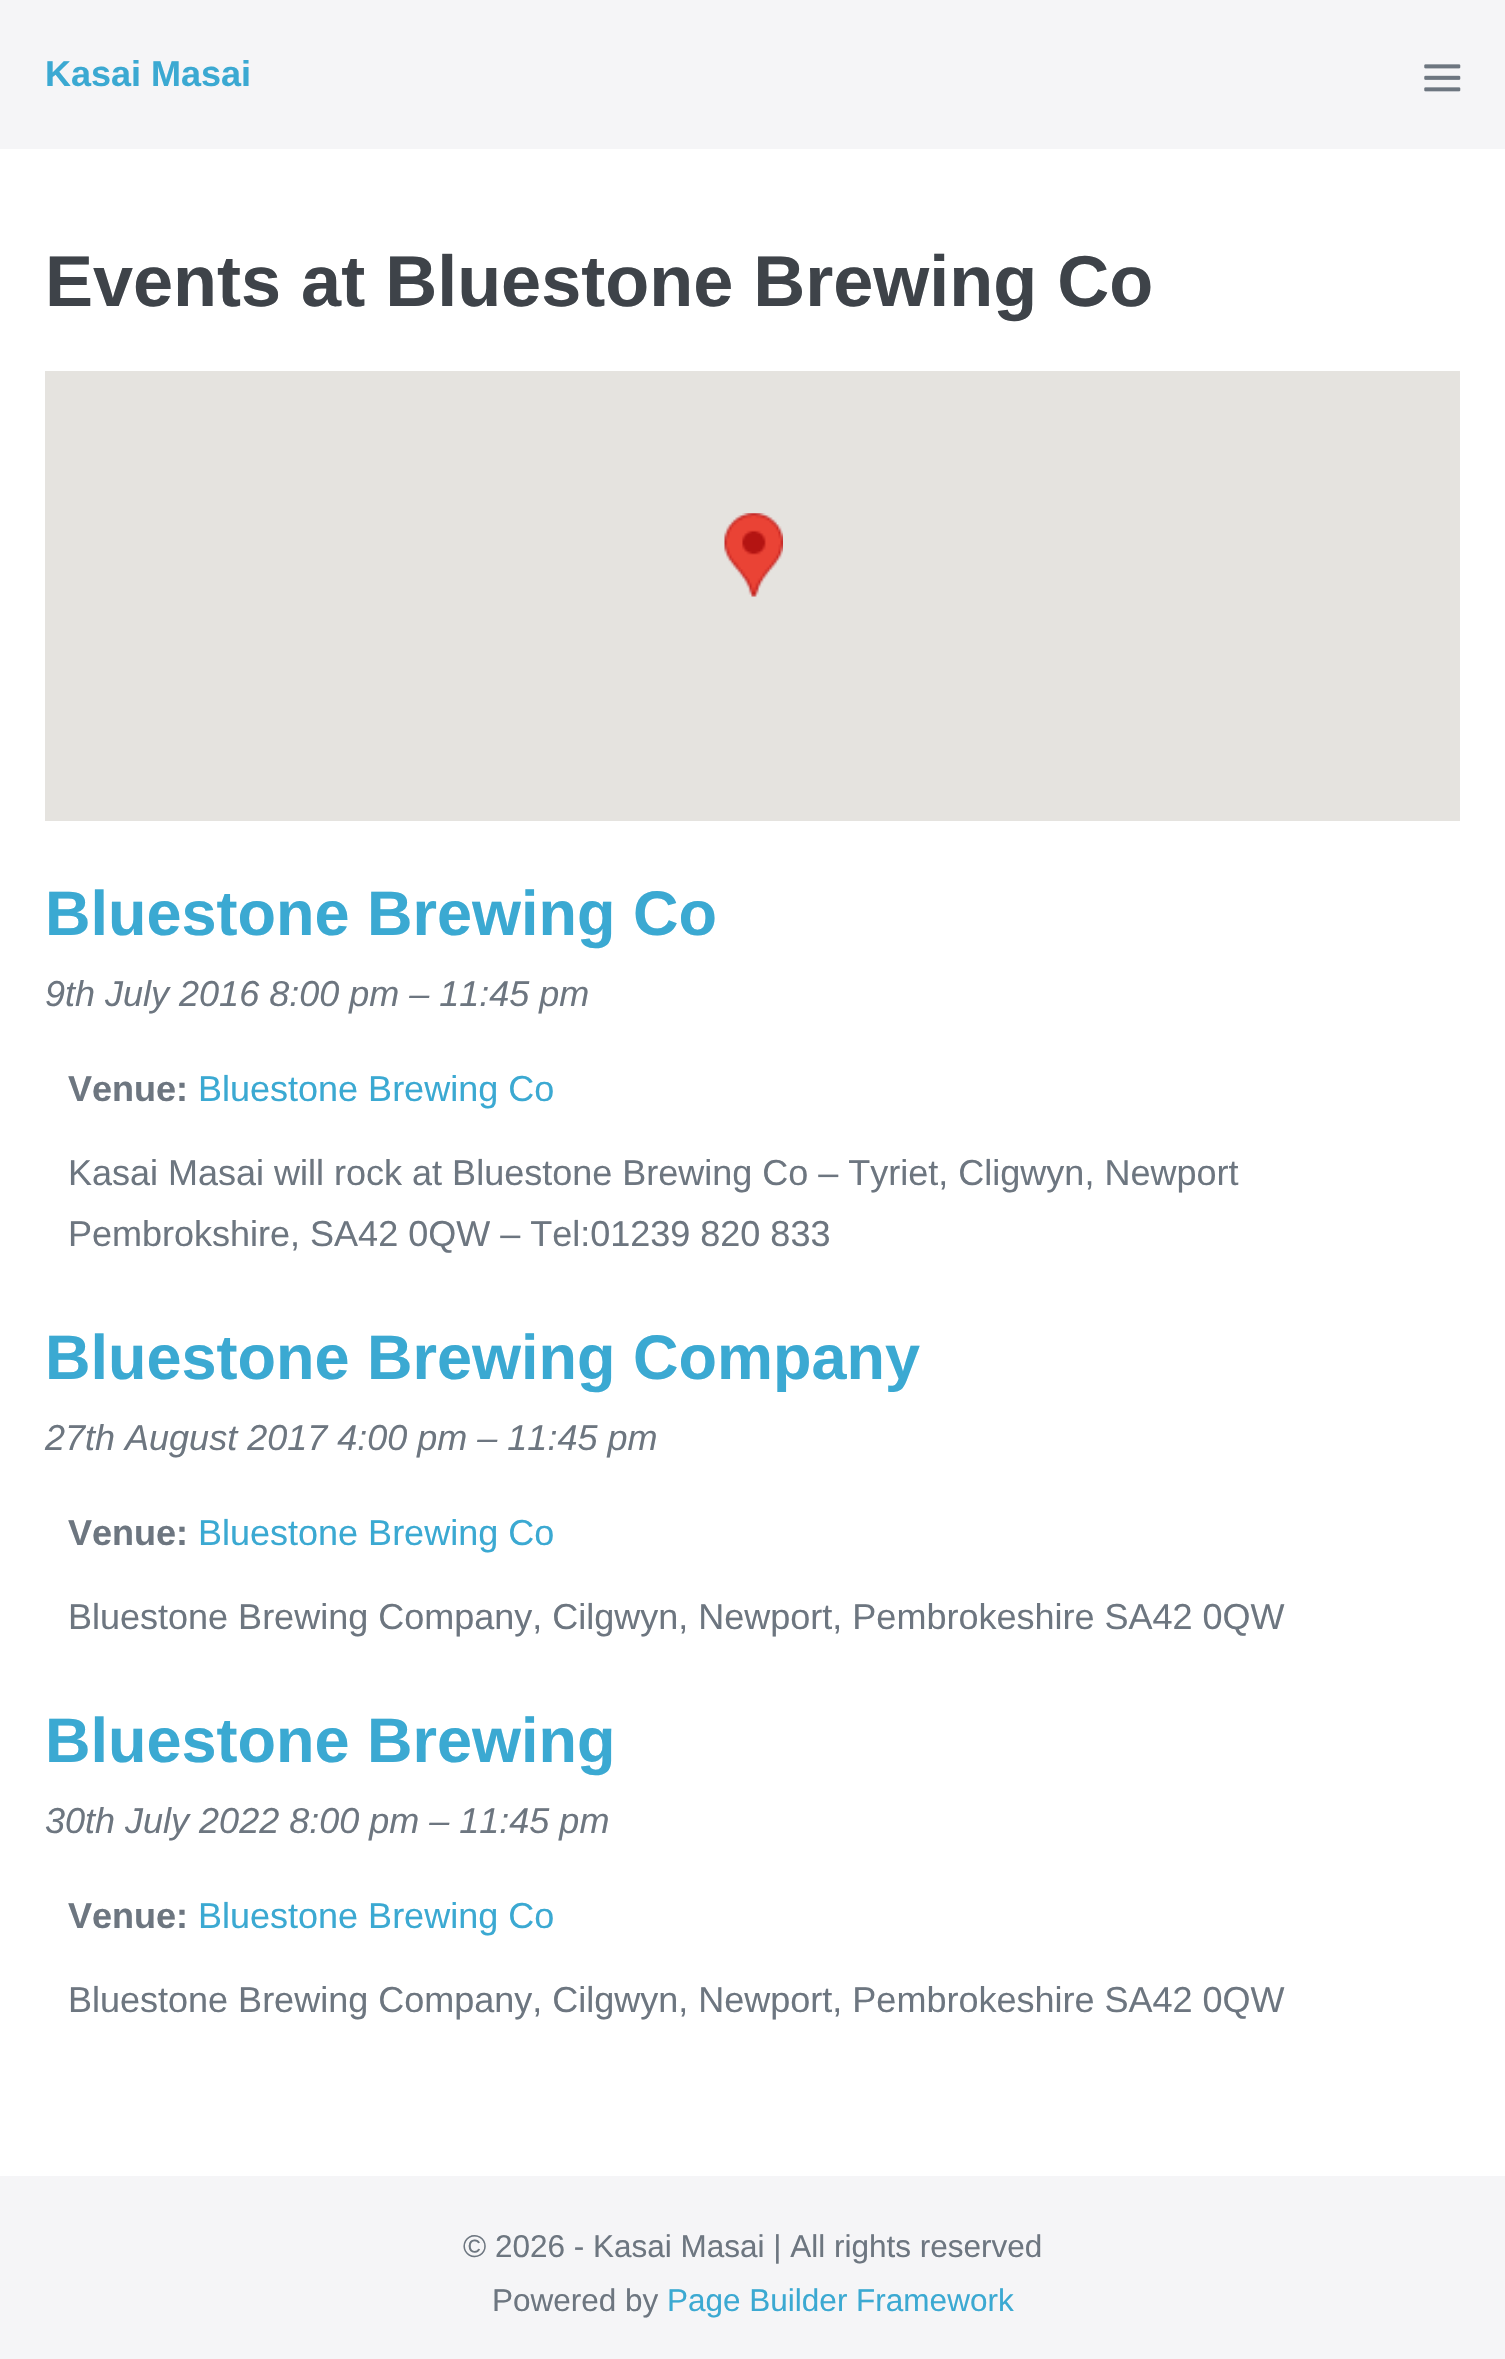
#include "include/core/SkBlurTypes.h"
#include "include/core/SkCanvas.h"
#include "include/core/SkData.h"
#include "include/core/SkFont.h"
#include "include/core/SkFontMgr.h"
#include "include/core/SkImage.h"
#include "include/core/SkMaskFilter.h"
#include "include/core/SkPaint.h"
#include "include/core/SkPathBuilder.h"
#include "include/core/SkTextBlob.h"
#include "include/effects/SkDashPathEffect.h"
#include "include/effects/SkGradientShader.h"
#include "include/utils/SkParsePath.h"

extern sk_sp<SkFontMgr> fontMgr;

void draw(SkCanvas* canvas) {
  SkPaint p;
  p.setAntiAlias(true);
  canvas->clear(SK_ColorWHITE);
  p.setColor(SkColorSetRGB(245, 245, 247));
  canvas->drawRect(SkRect::MakeLTRB(0, 0, 1505, 149), p);
  canvas->drawImageRect(SkImages::DeferredFromEncodedData(SkData::MakeFromFileName("images/1.png")), SkRect::MakeLTRB(1424, 64, 1461, 92), SkSamplingOptions());
  p.setColor(SkColorSetRGB(229, 227, 223));
  canvas->drawRect(SkRect::MakeLTRB(45, 371, 1460, 821), p);
  canvas->drawImageRect(SkImages::DeferredFromEncodedData(SkData::MakeFromFileName("images/2.png")), SkRect::MakeLTRB(724, 513, 783, 597), SkSamplingOptions());
  p.setColor(SkColorSetRGB(245, 245, 247));
  canvas->drawRect(SkRect::MakeLTRB(0, 2176, 1505, 2359), p);
  SkFont font1(fontMgr->matchFamilyStyle("Liberation Sans", SkFontStyle::Bold()), 36);
  font1.setSubpixel(true);
  p.setColor(SkColorSetRGB(59, 169, 210));
  canvas->drawString("Kasai Masai", 45, 86, font1, p);
  SkFont font2(fontMgr->matchFamilyStyle("Liberation Sans", SkFontStyle::Bold()), 72);
  font2.setSubpixel(true);
  p.setColor(SkColorSetRGB(62, 67, 73));
  canvas->drawString("Events at Bluestone Brewing Co", 45, 306, font2, p);
  SkFont font3(fontMgr->matchFamilyStyle("Liberation Sans", SkFontStyle::Bold()), 63);
  font3.setSubpixel(true);
  p.setColor(SkColorSetRGB(59, 169, 210));
  canvas->drawString("Bluestone Brewing Co", 45, 935, font3, p);
  SkFont font4(fontMgr->matchFamilyStyle("Liberation Sans", SkFontStyle::Italic()), 36);
  font4.setSubpixel(true);
  p.setColor(SkColorSetRGB(109, 118, 128));
  canvas->drawString("9th July 2016 8:00 pm – 11:45 pm", 45, 1006, font4, p);
  canvas->drawString("Venue:", 68, 1101, font1, p);
  SkFont font5(fontMgr->matchFamilyStyle("Liberation Sans", SkFontStyle::Normal()), 36);
  font5.setSubpixel(true);
  p.setColor(SkColorSetRGB(59, 169, 210));
  canvas->drawString("Bluestone Brewing Co", 198, 1101, font5, p);
  p.setColor(SkColorSetRGB(109, 118, 128));
  canvas->drawString("Kasai Masai will rock at Bluestone Brewing Co – Tyriet, Cligwyn, Newport", 68, 1185, font5, p);
  canvas->drawString("Pembrokshire, SA42 0QW – Tel:01239 820 833", 68, 1246, font5, p);
  p.setColor(SkColorSetRGB(59, 169, 210));
  canvas->drawString("Bluestone Brewing Company", 45, 1379, font3, p);
  p.setColor(SkColorSetRGB(109, 118, 128));
  canvas->drawString("27th August 2017 4:00 pm – 11:45 pm", 45, 1450, font4, p);
  canvas->drawString("Venue:", 68, 1545, font1, p);
  p.setColor(SkColorSetRGB(59, 169, 210));
  canvas->drawString("Bluestone Brewing Co", 198, 1545, font5, p);
  p.setColor(SkColorSetRGB(109, 118, 128));
  canvas->drawString("Bluestone Brewing Company, Cilgwyn, Newport, Pembrokeshire SA42 0QW", 68, 1629, font5, p);
  p.setColor(SkColorSetRGB(59, 169, 210));
  canvas->drawString("Bluestone Brewing", 45, 1762, font3, p);
  p.setColor(SkColorSetRGB(109, 118, 128));
  canvas->drawString("30th July 2022 8:00 pm – 11:45 pm", 45, 1833, font4, p);
  canvas->drawString("Venue:", 68, 1928, font1, p);
  p.setColor(SkColorSetRGB(59, 169, 210));
  canvas->drawString("Bluestone Brewing Co", 198, 1928, font5, p);
  p.setColor(SkColorSetRGB(109, 118, 128));
  canvas->drawString("Bluestone Brewing Company, Cilgwyn, Newport, Pembrokeshire SA42 0QW", 68, 2012, font5, p);
  SkFont font6(fontMgr->matchFamilyStyle("Liberation Sans", SkFontStyle::Normal()), 31.5f);
  font6.setSubpixel(true);
  canvas->drawString("© 2026 - Kasai Masai | All rights reserved", 463, 2257, font6, p);
  canvas->drawString("Powered by", 492, 2311, font6, p);
  p.setColor(SkColorSetRGB(59, 169, 210));
  canvas->drawString("Page Builder Framework", 667, 2311, font6, p);
}
